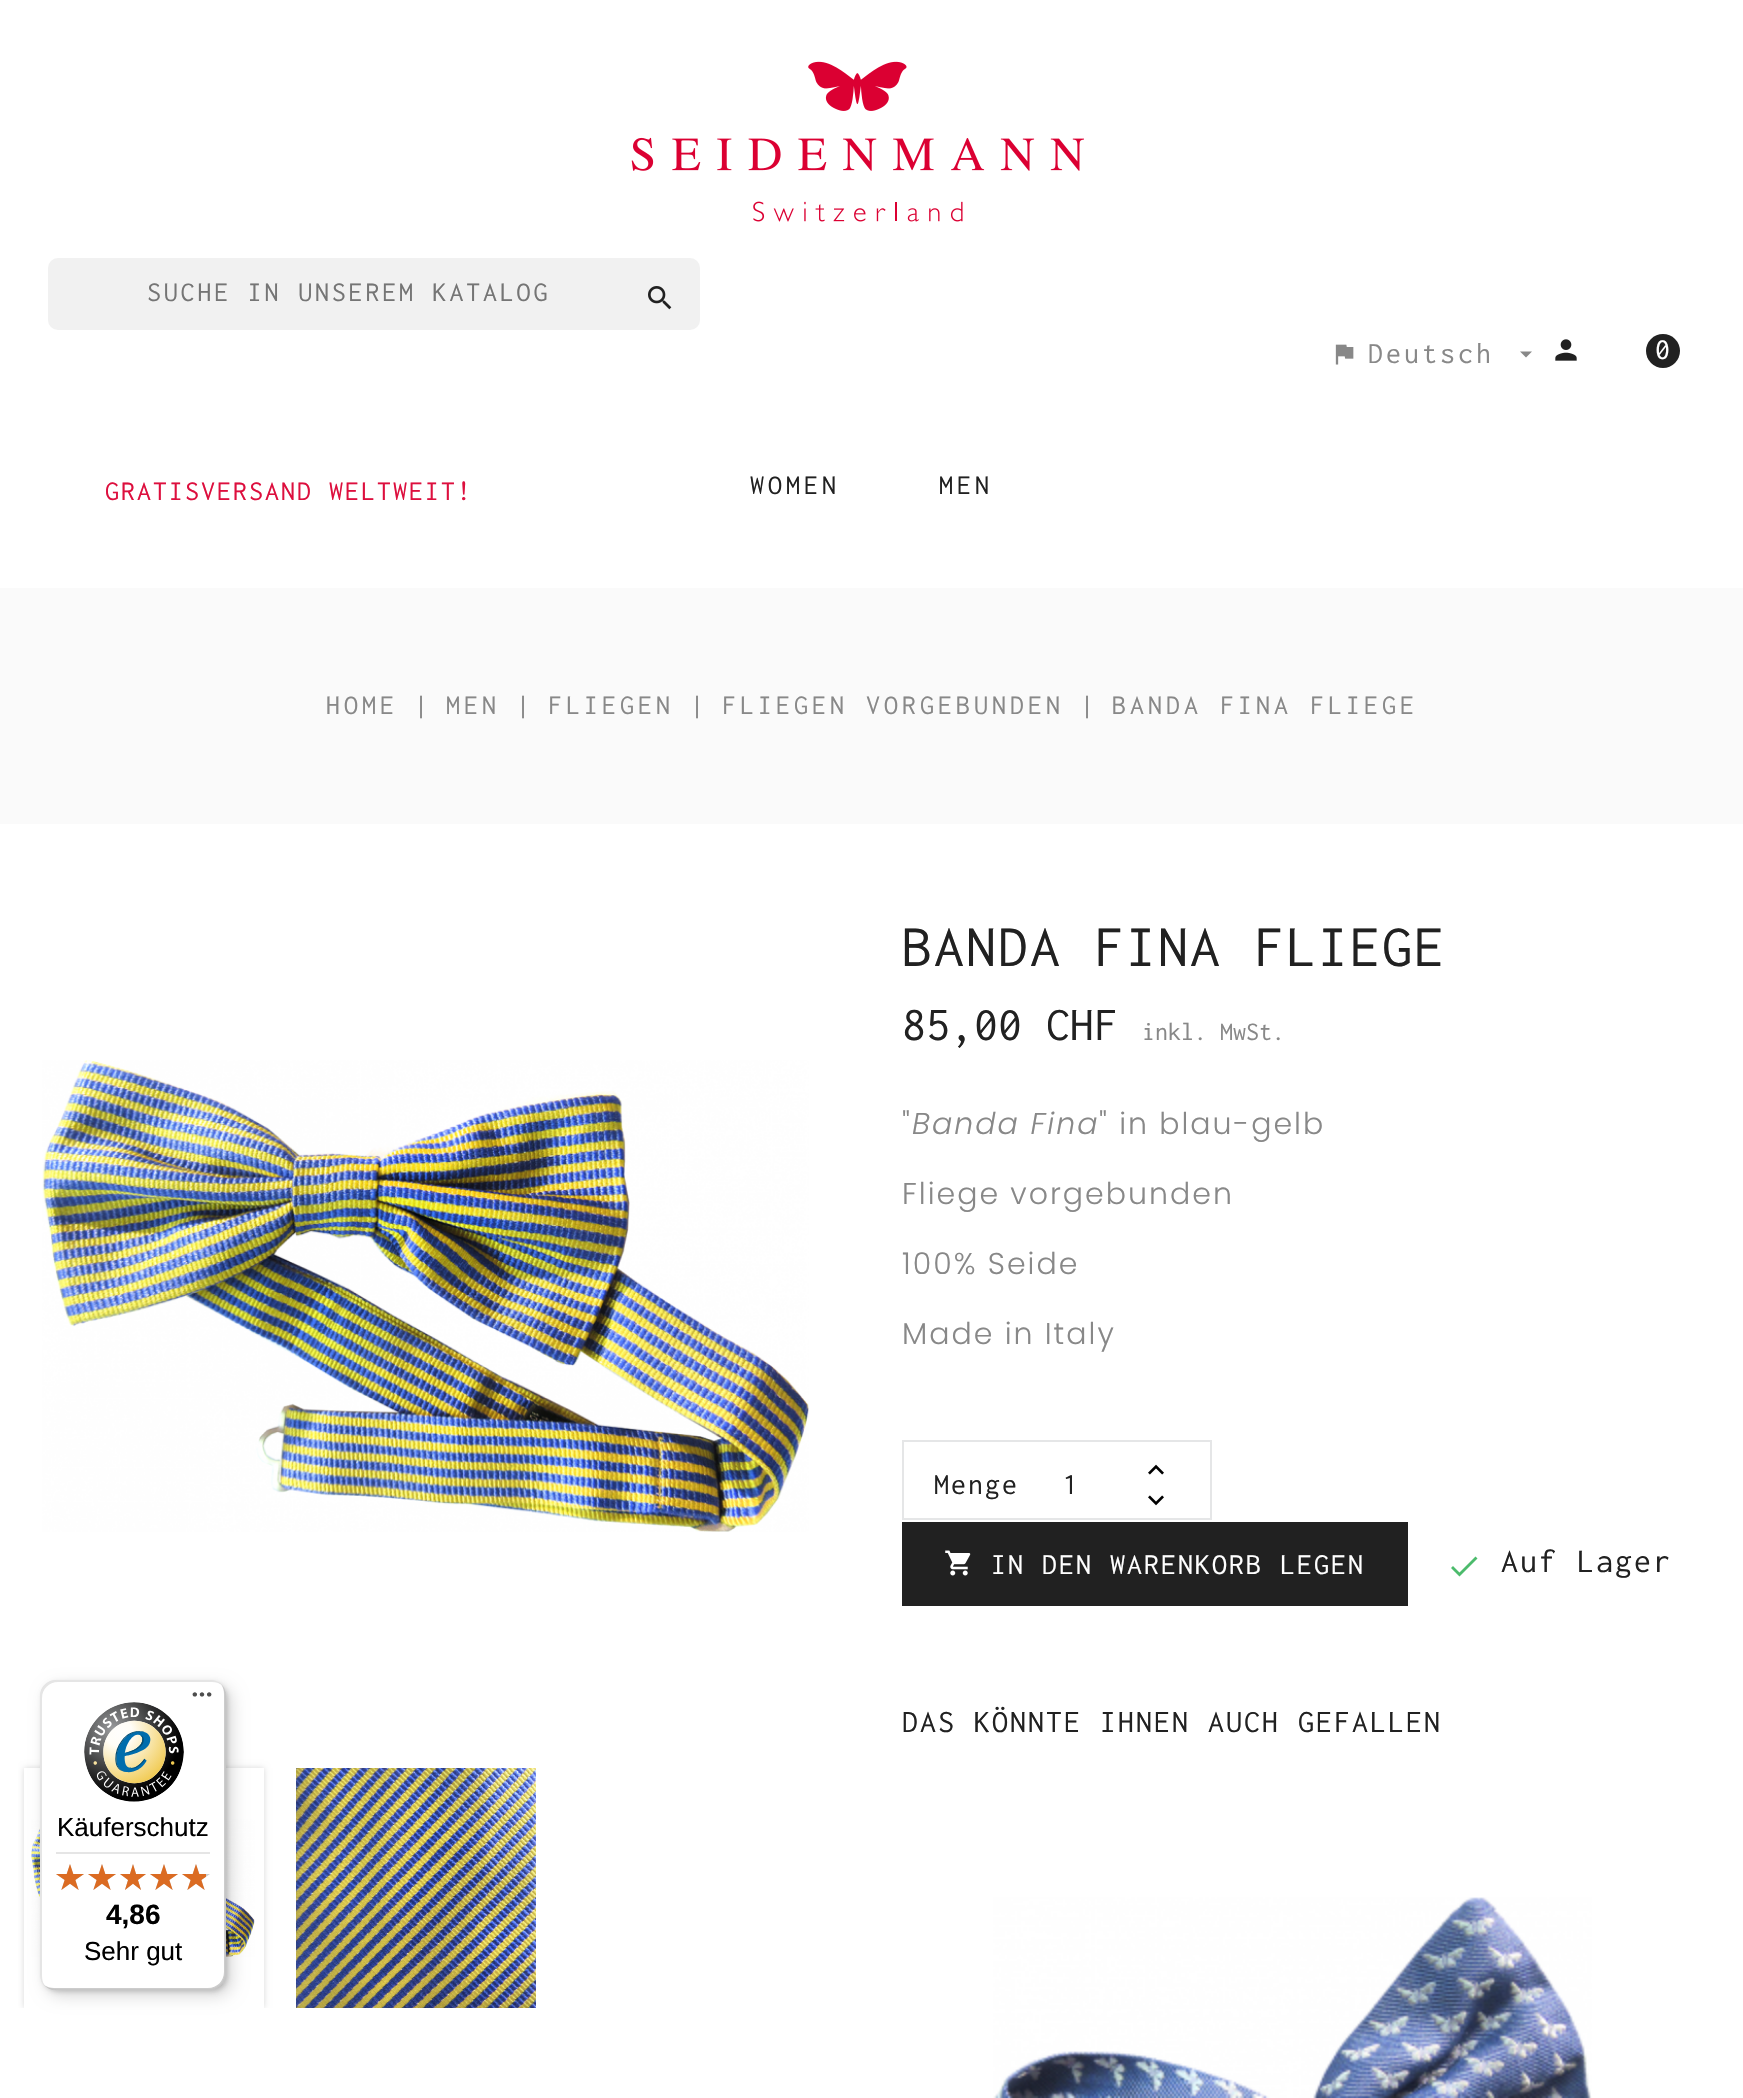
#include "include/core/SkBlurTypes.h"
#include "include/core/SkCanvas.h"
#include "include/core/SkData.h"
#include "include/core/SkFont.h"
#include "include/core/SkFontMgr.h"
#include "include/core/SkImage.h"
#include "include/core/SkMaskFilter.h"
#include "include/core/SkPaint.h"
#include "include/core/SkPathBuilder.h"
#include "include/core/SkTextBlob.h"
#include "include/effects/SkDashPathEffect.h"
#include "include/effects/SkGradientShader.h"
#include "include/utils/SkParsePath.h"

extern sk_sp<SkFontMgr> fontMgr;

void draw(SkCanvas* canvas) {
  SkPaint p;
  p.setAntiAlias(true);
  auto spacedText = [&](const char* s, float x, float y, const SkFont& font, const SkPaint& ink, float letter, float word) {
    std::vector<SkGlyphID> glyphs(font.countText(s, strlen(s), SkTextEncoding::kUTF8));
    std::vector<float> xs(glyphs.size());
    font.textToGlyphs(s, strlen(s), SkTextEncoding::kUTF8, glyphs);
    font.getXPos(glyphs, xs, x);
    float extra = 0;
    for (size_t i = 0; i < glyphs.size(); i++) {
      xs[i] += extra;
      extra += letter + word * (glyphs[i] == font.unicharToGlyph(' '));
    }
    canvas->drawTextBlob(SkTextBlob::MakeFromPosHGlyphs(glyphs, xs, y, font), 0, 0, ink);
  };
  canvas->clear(SK_ColorWHITE);
  canvas->drawImageRect(SkImages::DeferredFromEncodedData(SkData::MakeFromFileName("images/1.png")), SkRect::MakeLTRB(631, 61, 1084, 222), SkSamplingOptions());
  p.setColor(SkColorSetRGB(241, 241, 241));
  canvas->drawRoundRect(SkRect::MakeLTRB(48, 258, 700, 330), 10, 10, p);
  canvas->drawImageRect(SkImages::DeferredFromEncodedData(SkData::MakeFromFileName("images/2.png")), SkRect::MakeLTRB(648, 286, 672, 310), SkSamplingOptions());
  canvas->drawImageRect(SkImages::DeferredFromEncodedData(SkData::MakeFromFileName("images/3.png")), SkRect::MakeLTRB(1335, 344, 1354, 365), SkSamplingOptions());
  p.setColor(SkColorSetRGB(136, 136, 136));
  canvas->drawPath(SkPathBuilder().moveTo(1520, 351.5f).lineTo(1532, 351.5f).lineTo(1526, 357.5f).close().detach(), p);
  canvas->drawImageRect(SkImages::DeferredFromEncodedData(SkData::MakeFromFileName("images/4.png")), SkRect::MakeLTRB(1555, 339, 1577, 361), SkSamplingOptions());
  p.setColor(SkColorSetRGB(33, 33, 33));
  canvas->drawCircle(1663, 351, 17, p);
  p.setColor(SkColorSetRGB(250, 250, 250));
  canvas->drawRect(SkRect::MakeLTRB(0, 588, 1743, 824), p);
  canvas->drawImageRect(SkImages::DeferredFromEncodedData(SkData::MakeFromFileName("images/5.png")), SkRect::MakeLTRB(42, 1060, 809, 1532), SkSamplingOptions());
  canvas->save();
  canvas->clipRect(SkRect::MakeLTRB(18, 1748, 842, 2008));
  canvas->clipPath(SkPathBuilder(SkPathFillType::kEvenOdd).moveTo(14, 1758).lineTo(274, 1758).lineTo(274, 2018).lineTo(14, 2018).close().moveTo(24, 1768).lineTo(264, 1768).lineTo(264, 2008).lineTo(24, 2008).close().detach(), true);
  p.setColor(SkColorSetARGB(38, 0, 0, 0));
  p.setMaskFilter(SkMaskFilter::MakeBlur(kNormal_SkBlurStyle, 3));
  canvas->drawRect(SkRect::MakeLTRB(24, 1768, 264, 2008), p);
  p.setMaskFilter(nullptr);
  canvas->restore();
  canvas->drawImageRect(SkImages::DeferredFromEncodedData(SkData::MakeFromFileName("images/6.png")), SkRect::MakeLTRB(296, 1768, 536, 2008), SkSamplingOptions());
  canvas->drawImageRect(SkImages::DeferredFromEncodedData(SkData::MakeFromFileName("images/7.png")), SkRect::MakeLTRB(31, 1819, 255, 1957), SkSamplingOptions());
  p.setStyle(SkPaint::kStroke_Style);
  p.setStrokeWidth(2);
  p.setColor(SkColorSetRGB(229, 230, 231));
  canvas->drawRect(SkRect::MakeLTRB(903, 1441, 1211, 1519), p);
  canvas->drawImageRect(SkImages::DeferredFromEncodedData(SkData::MakeFromFileName("images/8.png")), SkRect::MakeLTRB(1148, 1464, 1164, 1475), SkSamplingOptions());
  canvas->drawImageRect(SkImages::DeferredFromEncodedData(SkData::MakeFromFileName("images/9.png")), SkRect::MakeLTRB(1148, 1495, 1164, 1506), SkSamplingOptions());
  p.setStyle(SkPaint::kFill_Style);
  p.setColor(SkColorSetRGB(33, 33, 33));
  canvas->drawRect(SkRect::MakeLTRB(902, 1522, 1408, 1606), p);
  canvas->drawImageRect(SkImages::DeferredFromEncodedData(SkData::MakeFromFileName("images/10.png")), SkRect::MakeLTRB(945, 1550, 971, 1576), SkSamplingOptions());
  p.setColor(SkColorSetRGB(76, 187, 108));
  canvas->drawPath(SkPathBuilder().moveTo(1459.5f, 1572.5f).lineTo(1475.5f, 1556.5f).lineTo(1477.5f, 1558.5f).lineTo(1459.5f, 1576.5f).lineTo(1451, 1568).lineTo(1453, 1566).close().detach(), p);
  canvas->drawImageRect(SkImages::DeferredFromEncodedData(SkData::MakeFromFileName("images/11.png")), SkRect::MakeLTRB(993, 1897, 1592, 2098), SkSamplingOptions());
  p.setColor(SkColorSetARGB(38, 0, 0, 0));
  p.setMaskFilter(SkMaskFilter::MakeBlur(kNormal_SkBlurStyle, 8));
  canvas->drawRoundRect(SkRect::MakeLTRB(46, 1686, 232, 1996), 16, 16, p);
  p.setMaskFilter(nullptr);
  p.setMaskFilter(SkMaskFilter::MakeBlur(kNormal_SkBlurStyle, 2));
  canvas->drawRoundRect(SkRect::MakeLTRB(42, 1682, 228, 1992), 16, 16, p);
  p.setMaskFilter(nullptr);
  p.setColor(SK_ColorWHITE);
  canvas->drawRoundRect(SkRect::MakeLTRB(40, 1680, 226, 1990), 16, 16, p);
  p.setColor(SkColorSetARGB(26, 0, 0, 0));
  canvas->drawPath(SkPathBuilder().moveTo(58, 1682).lineTo(212, 1682).cubicTo(216, 1682, 219, 1683, 222, 1685).cubicTo(219, 1682, 215, 1680, 210, 1680).lineTo(56, 1680).cubicTo(47, 1680, 40, 1687, 40, 1696).lineTo(40, 1974).cubicTo(40, 1979, 42, 1983, 45, 1986).cubicTo(43, 1983, 42, 1980, 42, 1976).lineTo(42, 1698).cubicTo(42, 1689, 49, 1682, 58, 1682).close().detach(), p);
  p.setColor(SkColorSetARGB(51, 0, 0, 0));
  canvas->drawPath(SkPathBuilder().moveTo(44, 1985).cubicTo(47, 1988, 51, 1990, 56, 1990).lineTo(210, 1990).cubicTo(219, 1990, 226, 1983, 226, 1974).lineTo(226, 1696).cubicTo(226, 1691, 224, 1687, 221, 1684).cubicTo(223, 1687, 224, 1690, 224, 1694).lineTo(224, 1972).cubicTo(224, 1981, 217, 1988, 208, 1988).lineTo(54, 1988).cubicTo(50, 1988, 47, 1987, 44, 1985).close().detach(), p);
  p.setColor(SkColorSetARGB(51, 50, 50, 50));
  canvas->drawPath(SkPathBuilder().moveTo(45, 1985).cubicTo(48, 1988, 52, 1990, 56, 1990).lineTo(210, 1990).cubicTo(219, 1990, 226, 1983, 226, 1974).lineTo(226, 1696).cubicTo(226, 1692, 224, 1688, 221, 1685).cubicTo(224, 1688, 225, 1691, 225, 1695).lineTo(225, 1973).cubicTo(225, 1982, 218, 1989, 209, 1989).lineTo(55, 1989).cubicTo(51, 1989, 48, 1988, 45, 1985).close().detach(), p);
  p.setColor(SkColorSetARGB(77, 255, 255, 255));
  canvas->drawPath(SkPathBuilder().moveTo(45, 1985).cubicTo(48, 1988, 52, 1990, 56, 1990).lineTo(210, 1990).cubicTo(219, 1990, 226, 1983, 226, 1974).lineTo(226, 1696).cubicTo(226, 1692, 224, 1688, 221, 1685).cubicTo(224, 1688, 225, 1691, 225, 1695).lineTo(225, 1973).cubicTo(225, 1982, 218, 1989, 209, 1989).lineTo(55, 1989).cubicTo(51, 1989, 48, 1988, 45, 1985).close().detach(), p);
  canvas->drawImageRect(SkImages::DeferredFromEncodedData(SkData::MakeFromFileName("images/12.png")), SkRect::MakeLTRB(192, 1692, 212, 1697), SkSamplingOptions());
  canvas->drawImageRect(SkImages::DeferredFromEncodedData(SkData::MakeFromFileName("images/13.png")), SkRect::MakeLTRB(84, 1702, 184, 1802), SkSamplingOptions());
  p.setColor(SkColorSetRGB(229, 229, 229));
  canvas->drawRect(SkRect::MakeLTRB(56, 1852, 210, 1854), p);
  canvas->drawImageRect(SkImages::DeferredFromEncodedData(SkData::MakeFromFileName("images/14.png")), SkRect::MakeLTRB(56, 1864, 84, 1890), SkSamplingOptions());
  canvas->drawImageRect(SkImages::DeferredFromEncodedData(SkData::MakeFromFileName("images/14.png")), SkRect::MakeLTRB(88, 1864, 116, 1890), SkSamplingOptions());
  canvas->drawImageRect(SkImages::DeferredFromEncodedData(SkData::MakeFromFileName("images/15.png")), SkRect::MakeLTRB(120, 1864, 146, 1890), SkSamplingOptions());
  canvas->drawImageRect(SkImages::DeferredFromEncodedData(SkData::MakeFromFileName("images/14.png")), SkRect::MakeLTRB(150, 1864, 178, 1890), SkSamplingOptions());
  canvas->drawImageRect(SkImages::DeferredFromEncodedData(SkData::MakeFromFileName("images/14.png")), SkRect::MakeLTRB(182, 1864, 210, 1890), SkSamplingOptions());
  canvas->drawImageRect(SkImages::DeferredFromEncodedData(SkData::MakeFromFileName("images/16.png")), SkRect::MakeLTRB(56, 1864, 84, 1890), SkSamplingOptions());
  canvas->drawImageRect(SkImages::DeferredFromEncodedData(SkData::MakeFromFileName("images/16.png")), SkRect::MakeLTRB(88, 1864, 116, 1890), SkSamplingOptions());
  canvas->drawImageRect(SkImages::DeferredFromEncodedData(SkData::MakeFromFileName("images/17.png")), SkRect::MakeLTRB(120, 1864, 146, 1890), SkSamplingOptions());
  canvas->drawImageRect(SkImages::DeferredFromEncodedData(SkData::MakeFromFileName("images/16.png")), SkRect::MakeLTRB(150, 1864, 178, 1890), SkSamplingOptions());
  canvas->drawImageRect(SkImages::DeferredFromEncodedData(SkData::MakeFromFileName("images/18.png")), SkRect::MakeLTRB(182, 1864, 206, 1890), SkSamplingOptions());
  SkFont font1(fontMgr->matchFamilyStyle("Inconsolata", SkFontStyle::Normal()), 28);
  font1.setSubpixel(true);
  p.setColor(SkColorSetRGB(117, 117, 117));
  spacedText("SUCHE IN UNSEREM KATALOG", 147, 301, font1, p, 2.8f, 0);
  SkFont font2(fontMgr->matchFamilyStyle("Inconsolata", SkFontStyle::Normal()), 30);
  font2.setSubpixel(true);
  p.setColor(SkColorSetRGB(136, 136, 136));
  spacedText("Deutsch", 1368, 363, font2, p, 3, 0);
  p.setColor(SK_ColorWHITE);
  spacedText("0", 1655, 359, font2, p, 3, 0);
  p.setColor(SkColorSetRGB(221, 15, 62));
  spacedText("GRATISVERSAND WELTWEIT!", 105, 500, font1, p, 2, 0);
  p.setColor(SkColorSetRGB(33, 33, 33));
  spacedText("WOMEN", 750, 494, font1, p, 4, 0);
  spacedText("MEN", 939, 494, font1, p, 4, 0);
  p.setColor(SkColorSetRGB(136, 136, 136));
  spacedText("HOME", 326, 714, font1, p, 4, 0);
  spacedText("|", 414, 714, font1, p, 2, 0);
  spacedText("MEN", 446, 714, font1, p, 4, 0);
  spacedText("|", 516, 714, font1, p, 2, 0);
  spacedText("FLIEGEN", 548, 714, font1, p, 4, 0);
  spacedText("|", 690, 714, font1, p, 2, 0);
  spacedText("FLIEGEN VORGEBUNDEN", 722, 714, font1, p, 4, 0);
  spacedText("|", 1080, 714, font1, p, 2, 0);
  spacedText("BANDA FINA FLIEGE", 1112, 714, font1, p, 4, 0);
  SkFont font3(fontMgr->matchFamilyStyle("Inconsolata", SkFontStyle::Normal()), 60);
  font3.setSubpixel(true);
  p.setColor(SkColorSetRGB(33, 33, 33));
  spacedText("BANDA FINA FLIEGE", 902, 966, font3, p, 2, 0);
  SkFont font4(fontMgr->matchFamilyStyle("Inconsolata", SkFontStyle::Normal()), 48);
  font4.setSubpixel(true);
  canvas->drawString("85,00 CHF", 902, 1040, font4, p);
  SkFont font5(fontMgr->matchFamilyStyle("Inconsolata", SkFontStyle::Normal()), 26);
  font5.setSubpixel(true);
  p.setColor(SkColorSetRGB(136, 136, 136));
  canvas->drawString("inkl. MwSt.", 1142, 1040, font5, p);
  SkFont font6(fontMgr->matchFamilyStyle("Poppins", SkFontStyle(300, SkFontStyle::kNormal_Width, SkFontStyle::kUpright_Slant)), 30);
  font6.setSubpixel(true);
  spacedText("\"", 902, 1134, font6, p, 2, 0);
  SkFont font7(fontMgr->matchFamilyStyle("Poppins", SkFontStyle(300, SkFontStyle::kNormal_Width, SkFontStyle::kItalic_Slant)), 30);
  font7.setSubpixel(true);
  spacedText("Banda Fina", 912, 1134, font7, p, 2, 0);
  spacedText("\" in blau-gelb", 1099, 1134, font6, p, 2, 0);
  spacedText("Fliege vorgebunden", 902, 1204, font6, p, 2, 0);
  spacedText("100% Seide", 902, 1274, font6, p, 2, 0);
  spacedText("Made in Italy", 902, 1344, font6, p, 2, 0);
  p.setColor(SkColorSetRGB(33, 33, 33));
  spacedText("Menge", 934, 1494, font2, p, 2, 0);
  spacedText("1", 1063, 1494, font2, p, 2, 0);
  p.setColor(SK_ColorWHITE);
  spacedText("IN DEN WARENKORB LEGEN", 991, 1574, font2, p, 2, 0);
  SkFont font8(fontMgr->matchFamilyStyle("Inconsolata", SkFontStyle::Normal()), 34);
  font8.setSubpixel(true);
  p.setColor(SkColorSetRGB(33, 33, 33));
  spacedText("Auf Lager", 1501, 1572, font8, p, 2, 0);
  SkFont font9(fontMgr->matchFamilyStyle("Inconsolata", SkFontStyle::Normal()), 32);
  font9.setSubpixel(true);
  spacedText("DAS KÖNNTE IHNEN AUCH GEFALLEN", 902, 1732, font9, p, 2, 0);
  SkFont font10(fontMgr->matchFamilyStyle("Liberation Sans", SkFontStyle::Normal()), 26);
  font10.setSubpixel(true);
  p.setColor(SK_ColorBLACK);
  canvas->drawString("Käuferschutz", 57, 1836, font10, p);
  SkFont font11(fontMgr->matchFamilyStyle("Liberation Sans", SkFontStyle::Bold()), 28);
  font11.setSubpixel(true);
  canvas->drawString("4,86", 106, 1924, font11, p);
  canvas->drawString("Sehr gut", 84, 1960, font10, p);
}
